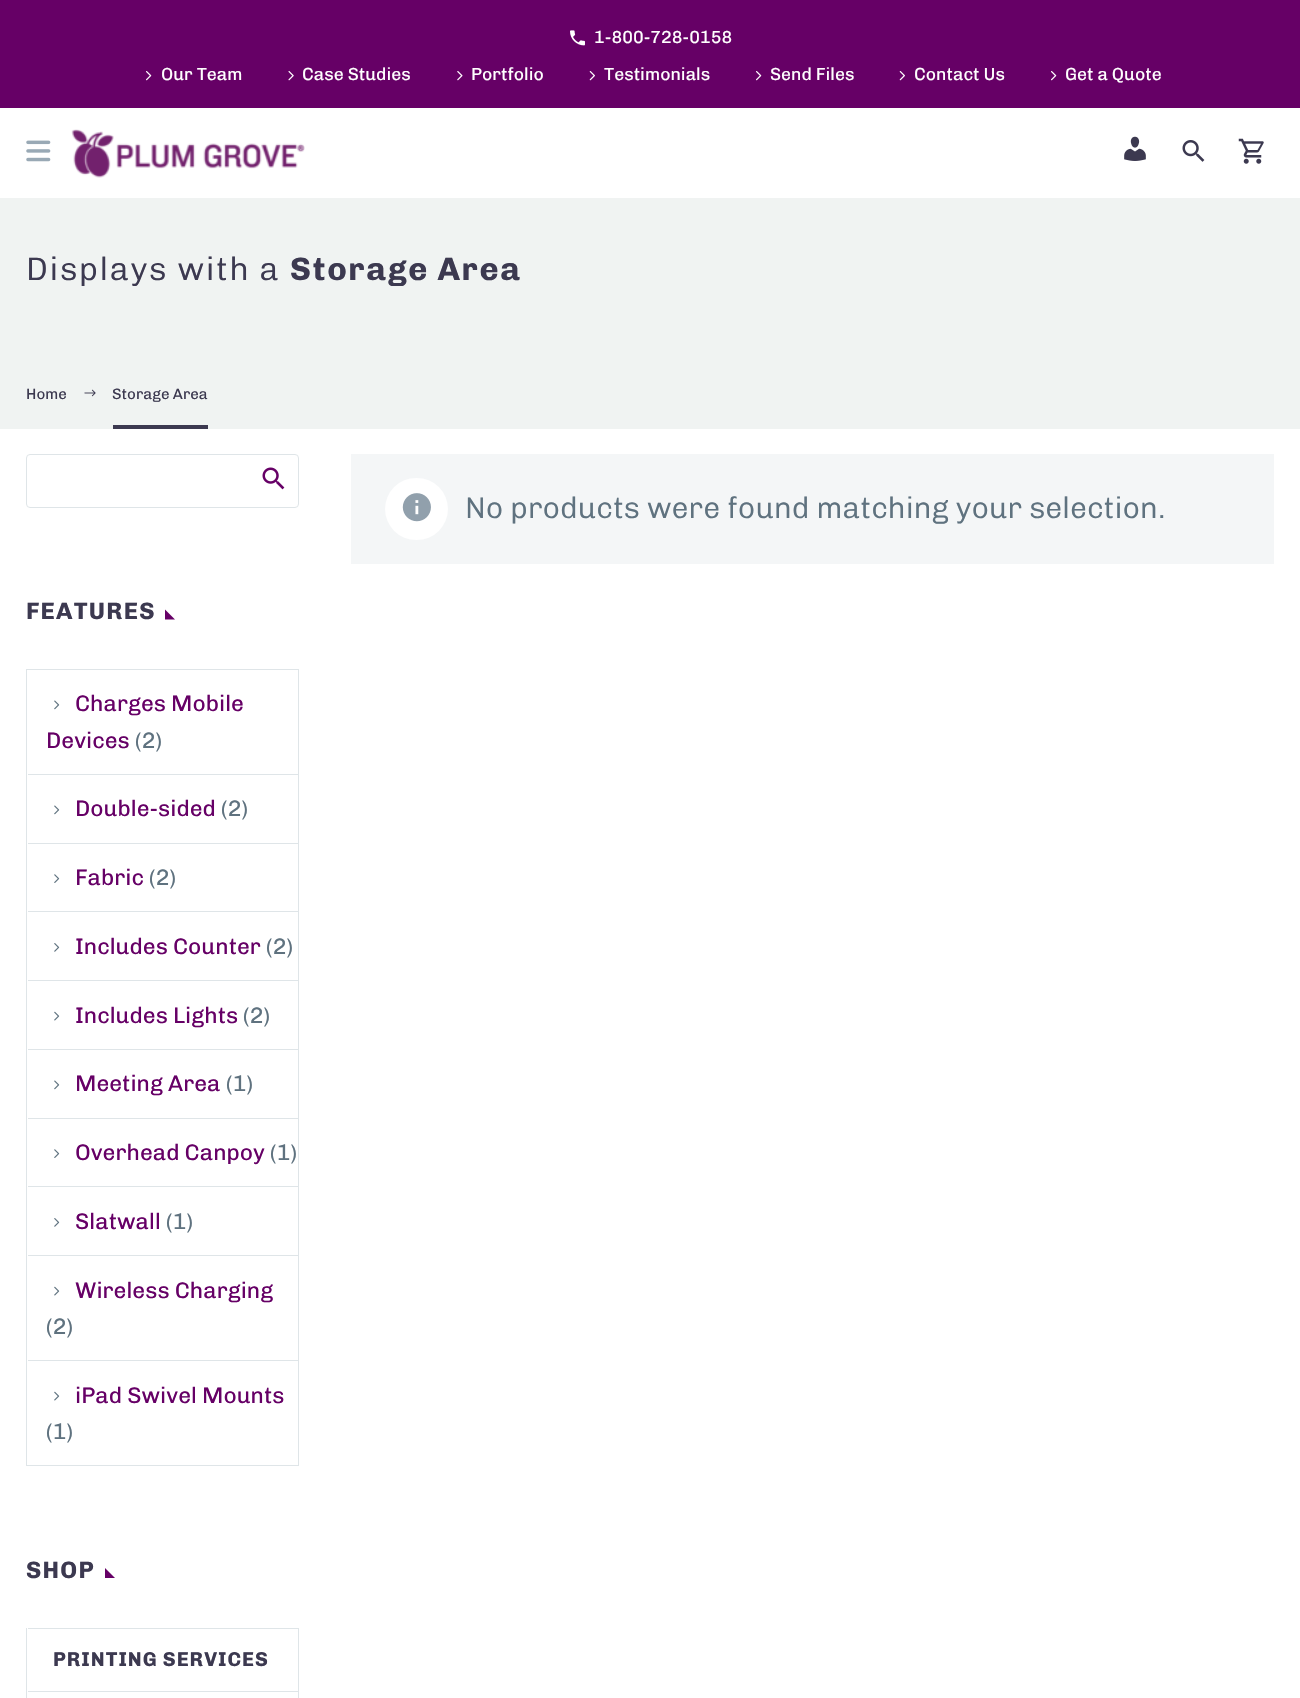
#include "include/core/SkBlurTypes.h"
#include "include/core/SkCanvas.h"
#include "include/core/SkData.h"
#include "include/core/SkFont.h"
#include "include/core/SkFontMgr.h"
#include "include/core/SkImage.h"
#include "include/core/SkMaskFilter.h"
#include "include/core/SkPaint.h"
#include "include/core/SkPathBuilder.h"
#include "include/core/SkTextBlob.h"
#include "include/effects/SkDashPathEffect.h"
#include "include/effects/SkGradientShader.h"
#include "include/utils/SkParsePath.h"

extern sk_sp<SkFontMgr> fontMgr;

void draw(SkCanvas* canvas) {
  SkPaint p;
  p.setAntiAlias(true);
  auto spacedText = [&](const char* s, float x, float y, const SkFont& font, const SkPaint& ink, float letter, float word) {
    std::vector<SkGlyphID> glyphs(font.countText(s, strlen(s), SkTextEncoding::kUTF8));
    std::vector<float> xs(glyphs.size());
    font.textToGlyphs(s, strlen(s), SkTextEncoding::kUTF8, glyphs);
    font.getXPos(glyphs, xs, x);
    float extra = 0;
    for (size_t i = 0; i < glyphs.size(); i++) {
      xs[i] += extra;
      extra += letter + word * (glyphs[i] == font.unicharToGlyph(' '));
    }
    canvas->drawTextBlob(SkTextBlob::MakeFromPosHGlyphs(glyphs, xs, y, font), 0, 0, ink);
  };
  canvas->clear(SK_ColorWHITE);
  canvas->save();
  canvas->clipPath(SkPathBuilder(SkPathFillType::kEvenOdd).moveTo(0, 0).lineTo(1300, 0).lineTo(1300, 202).lineTo(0, 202).close().moveTo(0, 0).lineTo(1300, 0).lineTo(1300, 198).lineTo(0, 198).close().detach(), true);
  p.setColor(SkColorSetARGB(51, 56, 69, 84));
  p.setMaskFilter(SkMaskFilter::MakeBlur(kNormal_SkBlurStyle, 1));
  canvas->drawRect(SkRect::MakeLTRB(0, 0, 1300, 198), p);
  p.setMaskFilter(nullptr);
  canvas->restore();
  p.setColor(SkColorSetRGB(102, 0, 102));
  canvas->drawRect(SkRect::MakeLTRB(0, 0, 1300, 108), p);
  canvas->drawImageRect(SkImages::DeferredFromEncodedData(SkData::MakeFromFileName("images/1.png")), SkRect::MakeLTRB(570, 30, 585, 46), SkSamplingOptions());
  canvas->drawImageRect(SkImages::DeferredFromEncodedData(SkData::MakeFromFileName("images/2.png")), SkRect::MakeLTRB(146, 71, 152, 81), SkSamplingOptions());
  canvas->drawImageRect(SkImages::DeferredFromEncodedData(SkData::MakeFromFileName("images/3.png")), SkRect::MakeLTRB(288, 71, 294, 81), SkSamplingOptions());
  canvas->drawImageRect(SkImages::DeferredFromEncodedData(SkData::MakeFromFileName("images/4.png")), SkRect::MakeLTRB(457, 71, 463, 81), SkSamplingOptions());
  canvas->drawImageRect(SkImages::DeferredFromEncodedData(SkData::MakeFromFileName("images/5.png")), SkRect::MakeLTRB(589, 71, 595, 81), SkSamplingOptions());
  canvas->drawImageRect(SkImages::DeferredFromEncodedData(SkData::MakeFromFileName("images/2.png")), SkRect::MakeLTRB(756, 71, 762, 81), SkSamplingOptions());
  canvas->drawImageRect(SkImages::DeferredFromEncodedData(SkData::MakeFromFileName("images/5.png")), SkRect::MakeLTRB(899, 71, 905, 81), SkSamplingOptions());
  canvas->drawImageRect(SkImages::DeferredFromEncodedData(SkData::MakeFromFileName("images/2.png")), SkRect::MakeLTRB(1051, 71, 1057, 81), SkSamplingOptions());
  canvas->drawImageRect(SkImages::DeferredFromEncodedData(SkData::MakeFromFileName("images/6.png")), SkRect::MakeLTRB(26, 140, 51, 162), SkSamplingOptions());
  canvas->drawImageRect(SkImages::DeferredFromEncodedData(SkData::MakeFromFileName("images/7.png")), SkRect::MakeLTRB(71, 129, 305, 178), SkSamplingOptions());
  canvas->drawImageRect(SkImages::DeferredFromEncodedData(SkData::MakeFromFileName("images/8.png")), SkRect::MakeLTRB(1124, 136, 1146, 161), SkSamplingOptions());
  canvas->drawImageRect(SkImages::DeferredFromEncodedData(SkData::MakeFromFileName("images/9.png")), SkRect::MakeLTRB(1182, 140, 1205, 162), SkSamplingOptions());
  canvas->drawImageRect(SkImages::DeferredFromEncodedData(SkData::MakeFromFileName("images/10.png")), SkRect::MakeLTRB(1238, 138, 1264, 164), SkSamplingOptions());
  p.setColor(SkColorSetRGB(240, 243, 242));
  canvas->drawRect(SkRect::MakeLTRB(0, 198, 1300, 429), p);
  canvas->drawImageRect(SkImages::DeferredFromEncodedData(SkData::MakeFromFileName("images/11.png")), SkRect::MakeLTRB(84, 389, 96, 397), SkSamplingOptions());
  p.setColor(SkColorSetRGB(60, 57, 80));
  canvas->drawRect(SkRect::MakeLTRB(113, 425, 208, 429), p);
  p.setColor(SkColorSetRGB(244, 246, 247));
  canvas->drawRect(SkRect::MakeLTRB(351, 454, 1274, 564), p);
  p.setColor(SK_ColorWHITE);
  canvas->drawRoundRect(SkRect::MakeLTRB(385, 478, 448, 540), 31, 31, p);
  canvas->drawImageRect(SkImages::DeferredFromEncodedData(SkData::MakeFromFileName("images/12.png")), SkRect::MakeLTRB(402, 493, 431, 522), SkSamplingOptions());
  p.setStyle(SkPaint::kStroke_Style);
  p.setStrokeWidth(1);
  p.setColor(SkColorSetRGB(223, 229, 232));
  canvas->drawRoundRect(SkRect::MakeLTRB(26.5f, 454.5f, 298.5f, 507.5f), 3.5f, 3.5f, p);
  canvas->drawImageRect(SkImages::DeferredFromEncodedData(SkData::MakeFromFileName("images/13.png")), SkRect::MakeLTRB(262, 467, 285, 490), SkSamplingOptions());
  p.setStyle(SkPaint::kFill_Style);
  p.setColor(SkColorSetRGB(102, 0, 102));
  canvas->drawPath(SkPathBuilder().moveTo(165, 609.5f).lineTo(165, 619.5f).lineTo(175, 619.5f).close().detach(), p);
  p.setStyle(SkPaint::kStroke_Style);
  p.setColor(SkColorSetRGB(223, 229, 232));
  canvas->drawRect(SkRect::MakeLTRB(26.5f, 669.5f, 298.5f, 1465.5f), p);
  canvas->drawImageRect(SkImages::DeferredFromEncodedData(SkData::MakeFromFileName("images/14.png")), SkRect::MakeLTRB(54, 700, 60, 710), SkSamplingOptions());
  p.setStyle(SkPaint::kFill_Style);
  canvas->drawRect(SkRect::MakeLTRB(28, 774, 298, 775), p);
  canvas->drawImageRect(SkImages::DeferredFromEncodedData(SkData::MakeFromFileName("images/14.png")), SkRect::MakeLTRB(54, 805, 60, 815), SkSamplingOptions());
  canvas->drawRect(SkRect::MakeLTRB(28, 843, 298, 844), p);
  canvas->drawImageRect(SkImages::DeferredFromEncodedData(SkData::MakeFromFileName("images/15.png")), SkRect::MakeLTRB(54, 874, 60, 883), SkSamplingOptions());
  canvas->drawRect(SkRect::MakeLTRB(28, 911, 298, 912), p);
  canvas->drawImageRect(SkImages::DeferredFromEncodedData(SkData::MakeFromFileName("images/16.png")), SkRect::MakeLTRB(54, 943, 60, 952), SkSamplingOptions());
  canvas->drawRect(SkRect::MakeLTRB(28, 980, 298, 981), p);
  canvas->drawImageRect(SkImages::DeferredFromEncodedData(SkData::MakeFromFileName("images/17.png")), SkRect::MakeLTRB(54, 1011, 60, 1021), SkSamplingOptions());
  canvas->drawRect(SkRect::MakeLTRB(28, 1049, 298, 1050), p);
  canvas->drawImageRect(SkImages::DeferredFromEncodedData(SkData::MakeFromFileName("images/14.png")), SkRect::MakeLTRB(54, 1080, 60, 1090), SkSamplingOptions());
  canvas->drawRect(SkRect::MakeLTRB(28, 1118, 298, 1119), p);
  canvas->drawImageRect(SkImages::DeferredFromEncodedData(SkData::MakeFromFileName("images/15.png")), SkRect::MakeLTRB(54, 1149, 60, 1158), SkSamplingOptions());
  canvas->drawRect(SkRect::MakeLTRB(28, 1186, 298, 1187), p);
  canvas->drawImageRect(SkImages::DeferredFromEncodedData(SkData::MakeFromFileName("images/16.png")), SkRect::MakeLTRB(54, 1218, 60, 1227), SkSamplingOptions());
  canvas->drawRect(SkRect::MakeLTRB(28, 1255, 298, 1256), p);
  canvas->drawImageRect(SkImages::DeferredFromEncodedData(SkData::MakeFromFileName("images/17.png")), SkRect::MakeLTRB(54, 1286, 60, 1296), SkSamplingOptions());
  canvas->drawRect(SkRect::MakeLTRB(28, 1360, 298, 1361), p);
  canvas->drawImageRect(SkImages::DeferredFromEncodedData(SkData::MakeFromFileName("images/17.png")), SkRect::MakeLTRB(54, 1391, 60, 1401), SkSamplingOptions());
  p.setColor(SkColorSetRGB(102, 0, 102));
  canvas->drawPath(SkPathBuilder().moveTo(105, 1568).lineTo(105, 1578).lineTo(115, 1578).close().detach(), p);
  p.setColor(SkColorSetRGB(223, 229, 232));
  canvas->drawRect(SkRect::MakeLTRB(298, 1628, 299, 1698), p);
  canvas->drawRect(SkRect::MakeLTRB(26, 1628, 27, 1698), p);
  canvas->drawRect(SkRect::MakeLTRB(28, 1628, 298, 1629), p);
  canvas->drawRect(SkRect::MakeLTRB(28, 1691, 298, 1692), p);
  SkFont font1(fontMgr->matchFamilyStyle("Chivo", SkFontStyle::Normal()), 17.5f);
  font1.setSubpixel(true);
  p.setColor(SK_ColorWHITE);
  canvas->drawString("1-800-728-0158", 594, 43, font1, p);
  canvas->drawString("Our Team", 161, 80, font1, p);
  canvas->drawString("Case Studies", 302, 80, font1, p);
  canvas->drawString("Portfolio", 471, 80, font1, p);
  canvas->drawString("Testimonials", 604, 80, font1, p);
  canvas->drawString("Send Files", 770, 80, font1, p);
  canvas->drawString("Contact Us", 914, 80, font1, p);
  canvas->drawString("Get a Quote", 1065, 80, font1, p);
  SkFont font2(fontMgr->matchFamilyStyle("Chivo", SkFontStyle(300, SkFontStyle::kNormal_Width, SkFontStyle::kUpright_Slant)), 32.5f);
  font2.setSubpixel(true);
  p.setColor(SkColorSetRGB(60, 57, 80));
  spacedText("Displays with a", 26, 280, font2, p, 1.6f, 0);
  SkFont font3(fontMgr->matchFamilyStyle("Chivo", SkFontStyle::Bold()), 32.5f);
  font3.setSubpixel(true);
  spacedText("Storage Area", 290, 280, font3, p, 1.6f, 0);
  SkFont font4(fontMgr->matchFamilyStyle("Chivo", SkFontStyle::Normal()), 15);
  font4.setSubpixel(true);
  canvas->drawString("Home", 26, 399, font4, p);
  canvas->drawString("Storage Area", 112, 399, font4, p);
  SkFont font5(fontMgr->matchFamilyStyle("Chivo", SkFontStyle(300, SkFontStyle::kNormal_Width, SkFontStyle::kUpright_Slant)), 30);
  font5.setSubpixel(true);
  p.setColor(SkColorSetRGB(95, 114, 127));
  canvas->drawString("No products were found matching your selection.", 465, 518, font5, p);
  SkFont font6(fontMgr->matchFamilyStyle("Chivo", SkFontStyle::Bold()), 23.75f);
  font6.setSubpixel(true);
  p.setColor(SkColorSetRGB(60, 57, 80));
  spacedText("FEATURES", 26, 619, font6, p, 1.25f, 0);
  SkFont font7(fontMgr->matchFamilyStyle("Chivo", SkFontStyle::Normal()), 22.5f);
  font7.setSubpixel(true);
  p.setColor(SkColorSetRGB(102, 0, 102));
  canvas->drawString("Charges Mobile", 75, 711, font7, p);
  canvas->drawString("Devices", 46, 748, font7, p);
  p.setColor(SkColorSetRGB(95, 114, 127));
  canvas->drawString("(2)", 135, 748, font7, p);
  p.setColor(SkColorSetRGB(102, 0, 102));
  canvas->drawString("Double-sided", 75, 816, font7, p);
  p.setColor(SkColorSetRGB(95, 114, 127));
  canvas->drawString("(2)", 221, 816, font7, p);
  p.setColor(SkColorSetRGB(102, 0, 102));
  canvas->drawString("Fabric", 75, 885, font7, p);
  p.setColor(SkColorSetRGB(95, 114, 127));
  canvas->drawString("(2)", 149, 885, font7, p);
  p.setColor(SkColorSetRGB(102, 0, 102));
  canvas->drawString("Includes Counter", 75, 954, font7, p);
  p.setColor(SkColorSetRGB(95, 114, 127));
  canvas->drawString("(2)", 266, 954, font7, p);
  p.setColor(SkColorSetRGB(102, 0, 102));
  canvas->drawString("Includes Lights", 75, 1023, font7, p);
  p.setColor(SkColorSetRGB(95, 114, 127));
  canvas->drawString("(2)", 243, 1023, font7, p);
  p.setColor(SkColorSetRGB(102, 0, 102));
  canvas->drawString("Meeting Area", 75, 1091, font7, p);
  p.setColor(SkColorSetRGB(95, 114, 127));
  canvas->drawString("(1)", 226, 1091, font7, p);
  p.setColor(SkColorSetRGB(102, 0, 102));
  canvas->drawString("Overhead Canpoy", 75, 1160, font7, p);
  p.setColor(SkColorSetRGB(95, 114, 127));
  canvas->drawString("(1)", 270, 1160, font7, p);
  p.setColor(SkColorSetRGB(102, 0, 102));
  canvas->drawString("Slatwall", 75, 1229, font7, p);
  p.setColor(SkColorSetRGB(95, 114, 127));
  canvas->drawString("(1)", 166, 1229, font7, p);
  p.setColor(SkColorSetRGB(102, 0, 102));
  canvas->drawString("Wireless Charging", 75, 1298, font7, p);
  p.setColor(SkColorSetRGB(95, 114, 127));
  canvas->drawString("(2)", 46, 1334, font7, p);
  p.setColor(SkColorSetRGB(102, 0, 102));
  canvas->drawString("iPad Swivel Mounts", 75, 1403, font7, p);
  p.setColor(SkColorSetRGB(95, 114, 127));
  canvas->drawString("(1)", 46, 1439, font7, p);
  p.setColor(SkColorSetRGB(60, 57, 80));
  spacedText("SHOP", 26, 1578, font6, p, 1.25f, 0);
  SkFont font8(fontMgr->matchFamilyStyle("Chivo", SkFontStyle::Bold()), 20);
  font8.setSubpixel(true);
  spacedText("PRINTING SERVICES", 53, 1666, font8, p, 1, 0);
}
